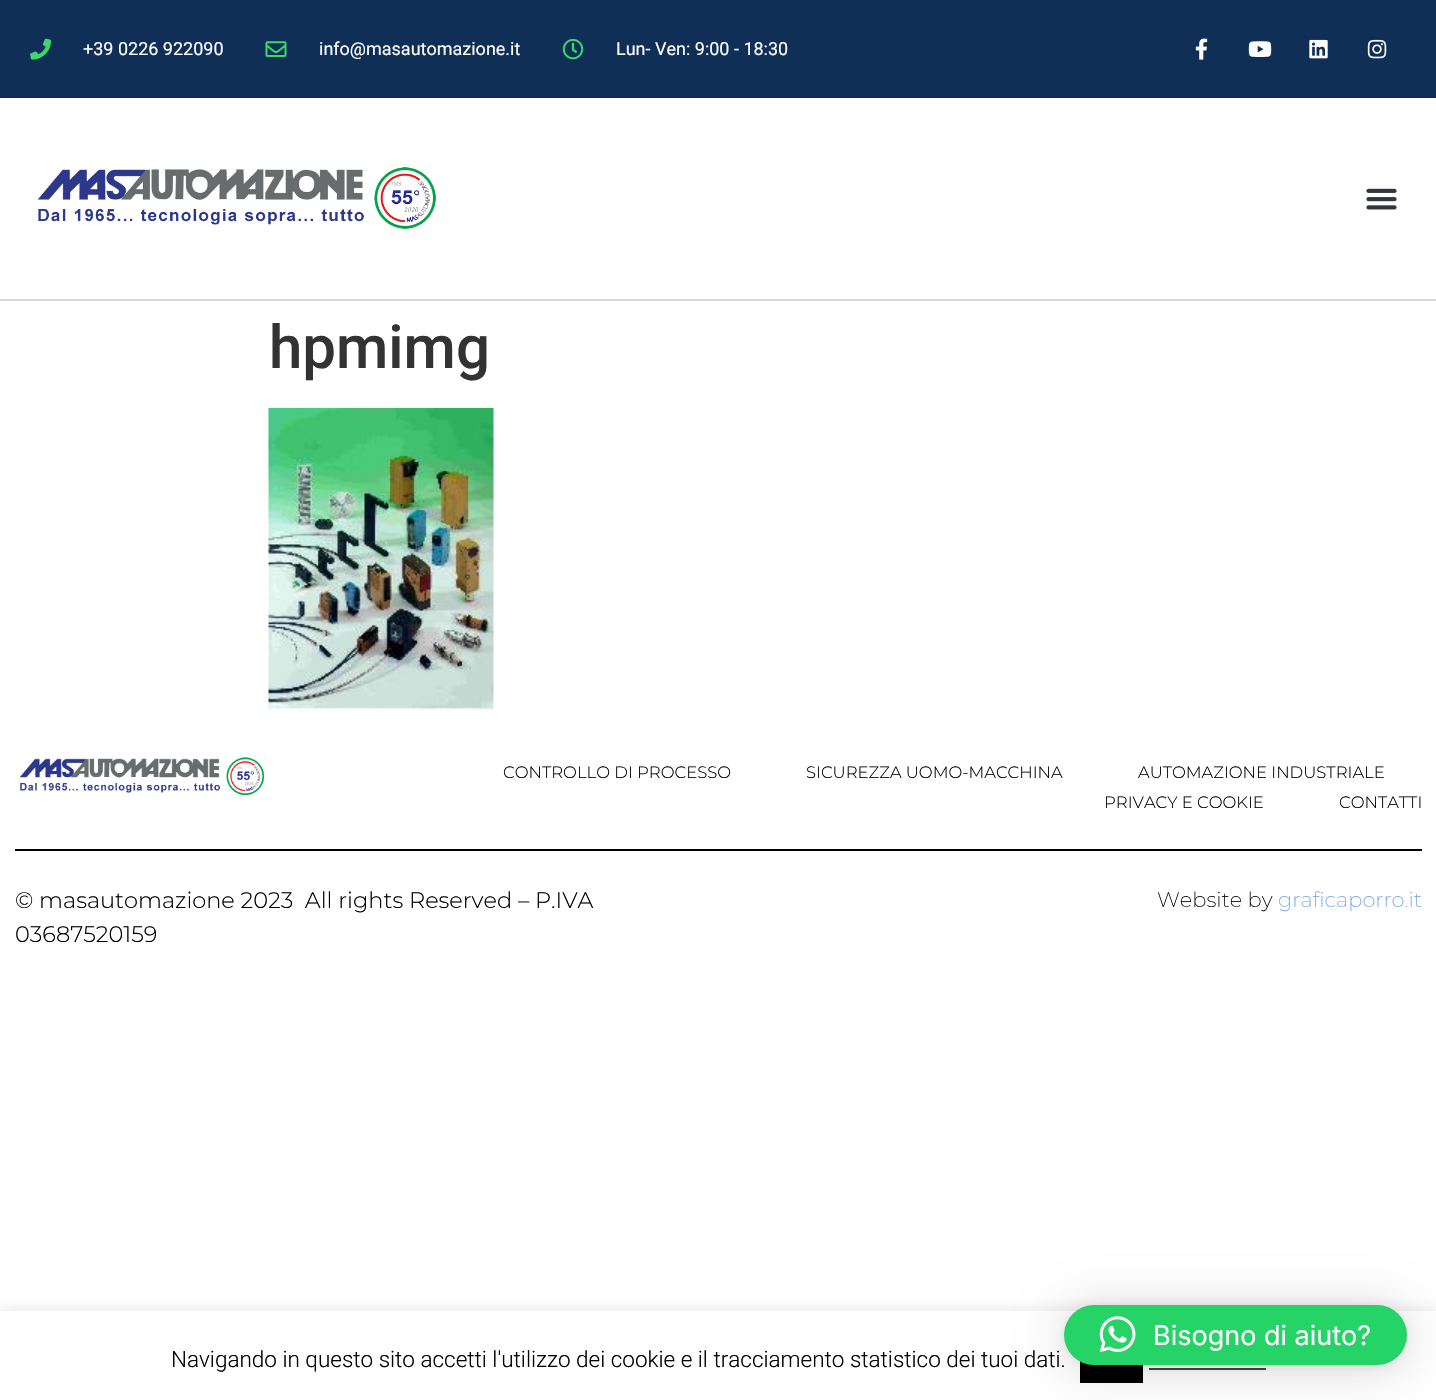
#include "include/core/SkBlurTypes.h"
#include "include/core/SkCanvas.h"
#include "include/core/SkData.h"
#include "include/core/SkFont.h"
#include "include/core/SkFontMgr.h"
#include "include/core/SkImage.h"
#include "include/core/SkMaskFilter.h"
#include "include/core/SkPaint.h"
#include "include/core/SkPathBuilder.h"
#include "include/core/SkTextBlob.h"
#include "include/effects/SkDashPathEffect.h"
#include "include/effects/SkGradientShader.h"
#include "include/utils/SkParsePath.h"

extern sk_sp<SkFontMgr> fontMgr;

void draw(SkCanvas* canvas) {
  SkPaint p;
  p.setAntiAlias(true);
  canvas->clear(SK_ColorWHITE);
  p.setColor(SkColorSetRGB(15, 47, 87));
  canvas->drawRect(SkRect::MakeLTRB(0, 0, 1436, 98), p);
  canvas->drawImageRect(SkImages::DeferredFromEncodedData(SkData::MakeFromFileName("images/1.png")), SkRect::MakeLTRB(30, 38, 51, 60), SkSamplingOptions());
  canvas->drawImageRect(SkImages::DeferredFromEncodedData(SkData::MakeFromFileName("images/2.png")), SkRect::MakeLTRB(265, 41, 287, 57), SkSamplingOptions());
  canvas->drawImageRect(SkImages::DeferredFromEncodedData(SkData::MakeFromFileName("images/3.png")), SkRect::MakeLTRB(562, 39, 584, 60), SkSamplingOptions());
  canvas->drawImageRect(SkImages::DeferredFromEncodedData(SkData::MakeFromFileName("images/4.png")), SkRect::MakeLTRB(1195, 38, 1208, 60), SkSamplingOptions());
  canvas->drawImageRect(SkImages::DeferredFromEncodedData(SkData::MakeFromFileName("images/5.png")), SkRect::MakeLTRB(1248, 41, 1272, 57), SkSamplingOptions());
  canvas->drawImageRect(SkImages::DeferredFromEncodedData(SkData::MakeFromFileName("images/6.png")), SkRect::MakeLTRB(1309, 39, 1328, 59), SkSamplingOptions());
  canvas->drawImageRect(SkImages::DeferredFromEncodedData(SkData::MakeFromFileName("images/7.png")), SkRect::MakeLTRB(1367, 39, 1387, 59), SkSamplingOptions());
  p.setColor(SkColorSetRGB(216, 216, 216));
  canvas->drawRect(SkRect::MakeLTRB(0, 299, 1436, 301), p);
  canvas->drawImageRect(SkImages::DeferredFromEncodedData(SkData::MakeFromFileName("images/8.png")), SkRect::MakeLTRB(38, 167, 436, 229), SkSamplingOptions());
  canvas->drawImageRect(SkImages::DeferredFromEncodedData(SkData::MakeFromFileName("images/9.png")), SkRect::MakeLTRB(1366, 188, 1397, 210), SkSamplingOptions());
  canvas->drawImageRect(SkImages::DeferredFromEncodedData(SkData::MakeFromFileName("images/10.png")), SkRect::MakeLTRB(268, 408, 494, 710), SkSamplingOptions());
  canvas->drawImageRect(SkImages::DeferredFromEncodedData(SkData::MakeFromFileName("images/11.png")), SkRect::MakeLTRB(19, 757, 264, 795), SkSamplingOptions());
  p.setColor(SK_ColorBLACK);
  canvas->drawRect(SkRect::MakeLTRB(15, 849, 1422, 851), p);
  canvas->save();
  canvas->clipRect(SkRect::MakeLTRB(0, 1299, 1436, 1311));
  p.setColor(SkColorSetARGB(77, 172, 171, 171));
  p.setMaskFilter(SkMaskFilter::MakeBlur(kNormal_SkBlurStyle, 7.5f));
  canvas->drawRect(SkRect::MakeLTRB(0, 1310, 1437, 1400), p);
  p.setMaskFilter(nullptr);
  canvas->restore();
  p.setColor(SK_ColorBLACK);
  canvas->drawRect(SkRect::MakeLTRB(1080, 1361, 1143, 1383), p);
  p.setColor(SkColorSetRGB(68, 68, 68));
  canvas->drawRect(SkRect::MakeLTRB(1149, 1368, 1266, 1370), p);
  p.setColor(SkColorSetARGB(41, 0, 0, 0));
  p.setMaskFilter(SkMaskFilter::MakeBlur(kNormal_SkBlurStyle, 24));
  canvas->drawRoundRect(SkRect::MakeLTRB(1064, 1308, 1407, 1368), 30, 30, p);
  p.setMaskFilter(nullptr);
  p.setColor(SkColorSetARGB(15, 0, 0, 0));
  p.setMaskFilter(SkMaskFilter::MakeBlur(kNormal_SkBlurStyle, 4.5f));
  canvas->drawRoundRect(SkRect::MakeLTRB(1064, 1307, 1407, 1367), 30, 30, p);
  p.setMaskFilter(nullptr);
  SkFont font1(fontMgr->matchFamilyStyle("Roboto", SkFontStyle::Normal()), 18);
  font1.setSubpixel(true);
  p.setColor(SK_ColorWHITE);
  canvas->drawString("+39 0226 922090", 83, 55, font1, p);
  canvas->drawString("info@masautomazione.it", 319, 55, font1, p);
  canvas->drawString("Lun- Ven: 9:00 - 18:30", 616, 55, font1, p);
  SkFont font2(fontMgr->matchFamilyStyle("Roboto", SkFontStyle(500, SkFontStyle::kNormal_Width, SkFontStyle::kUpright_Slant)), 60);
  font2.setSubpixel(true);
  p.setColor(SkColorSetRGB(51, 51, 51));
  canvas->drawString("hpmimg", 269, 368, font2, p);
  SkFont font3(fontMgr->matchFamilyStyle("Montserrat", SkFontStyle(300, SkFontStyle::kNormal_Width, SkFontStyle::kUpright_Slant)), 16.5f);
  font3.setSubpixel(true);
  p.setColor(SK_ColorBLACK);
  canvas->drawString("CONTROLLO DI PROCESSO", 503, 778, font3, p);
  canvas->drawString("SICUREZZA UOMO-MACCHINA", 806, 778, font3, p);
  canvas->drawString("AUTOMAZIONE INDUSTRIALE", 1138, 778, font3, p);
  canvas->drawString("PRIVACY E COOKIE", 1104, 808, font3, p);
  canvas->drawString("CONTATTI", 1339, 808, font3, p);
  SkFont font4(fontMgr->matchFamilyStyle("Montserrat", SkFontStyle(300, SkFontStyle::kNormal_Width, SkFontStyle::kUpright_Slant)), 22.5f);
  font4.setSubpixel(true);
  canvas->drawString("© masautomazione 2023  All rights Reserved – P.IVA", 15, 908, font4, p);
  canvas->drawString("03687520159", 15, 942, font4, p);
  SkFont font5(fontMgr->matchFamilyStyle("Montserrat", SkFontStyle(200, SkFontStyle::kNormal_Width, SkFontStyle::kUpright_Slant)), 21);
  font5.setSubpixel(true);
  canvas->drawString("Website by", 1157, 907, font5, p);
  p.setColor(SkColorSetRGB(112, 162, 230));
  canvas->drawString("graficaporro.it", 1278, 907, font5, p);
  SkFont font6(fontMgr->matchFamilyStyle("Roboto", SkFontStyle(300, SkFontStyle::kNormal_Width, SkFontStyle::kUpright_Slant)), 22.5f);
  font6.setSubpixel(true);
  p.setColor(SK_ColorBLACK);
  canvas->drawString("Navigando in questo sito accetti l'utilizzo dei cookie e il tracciamento statistico dei tuoi dati.", 171, 1367, font6, p);
  p.setColor(SkColorSetRGB(37, 211, 102));
  canvas->drawRoundRect(SkRect::MakeLTRB(1064, 1305, 1407, 1365), 30, 30, p);
  SkFont font7(fontMgr->matchFamilyStyle("Inter", SkFontStyle::Normal()), 27);
  font7.setSubpixel(true);
  p.setColor(SK_ColorWHITE);
  canvas->drawString("Bisogno di aiuto?", 1153, 1345, font7, p);
  canvas->drawImageRect(SkImages::DeferredFromEncodedData(SkData::MakeFromFileName("images/12.png")), SkRect::MakeLTRB(1099, 1316, 1136, 1353), SkSamplingOptions());
}
